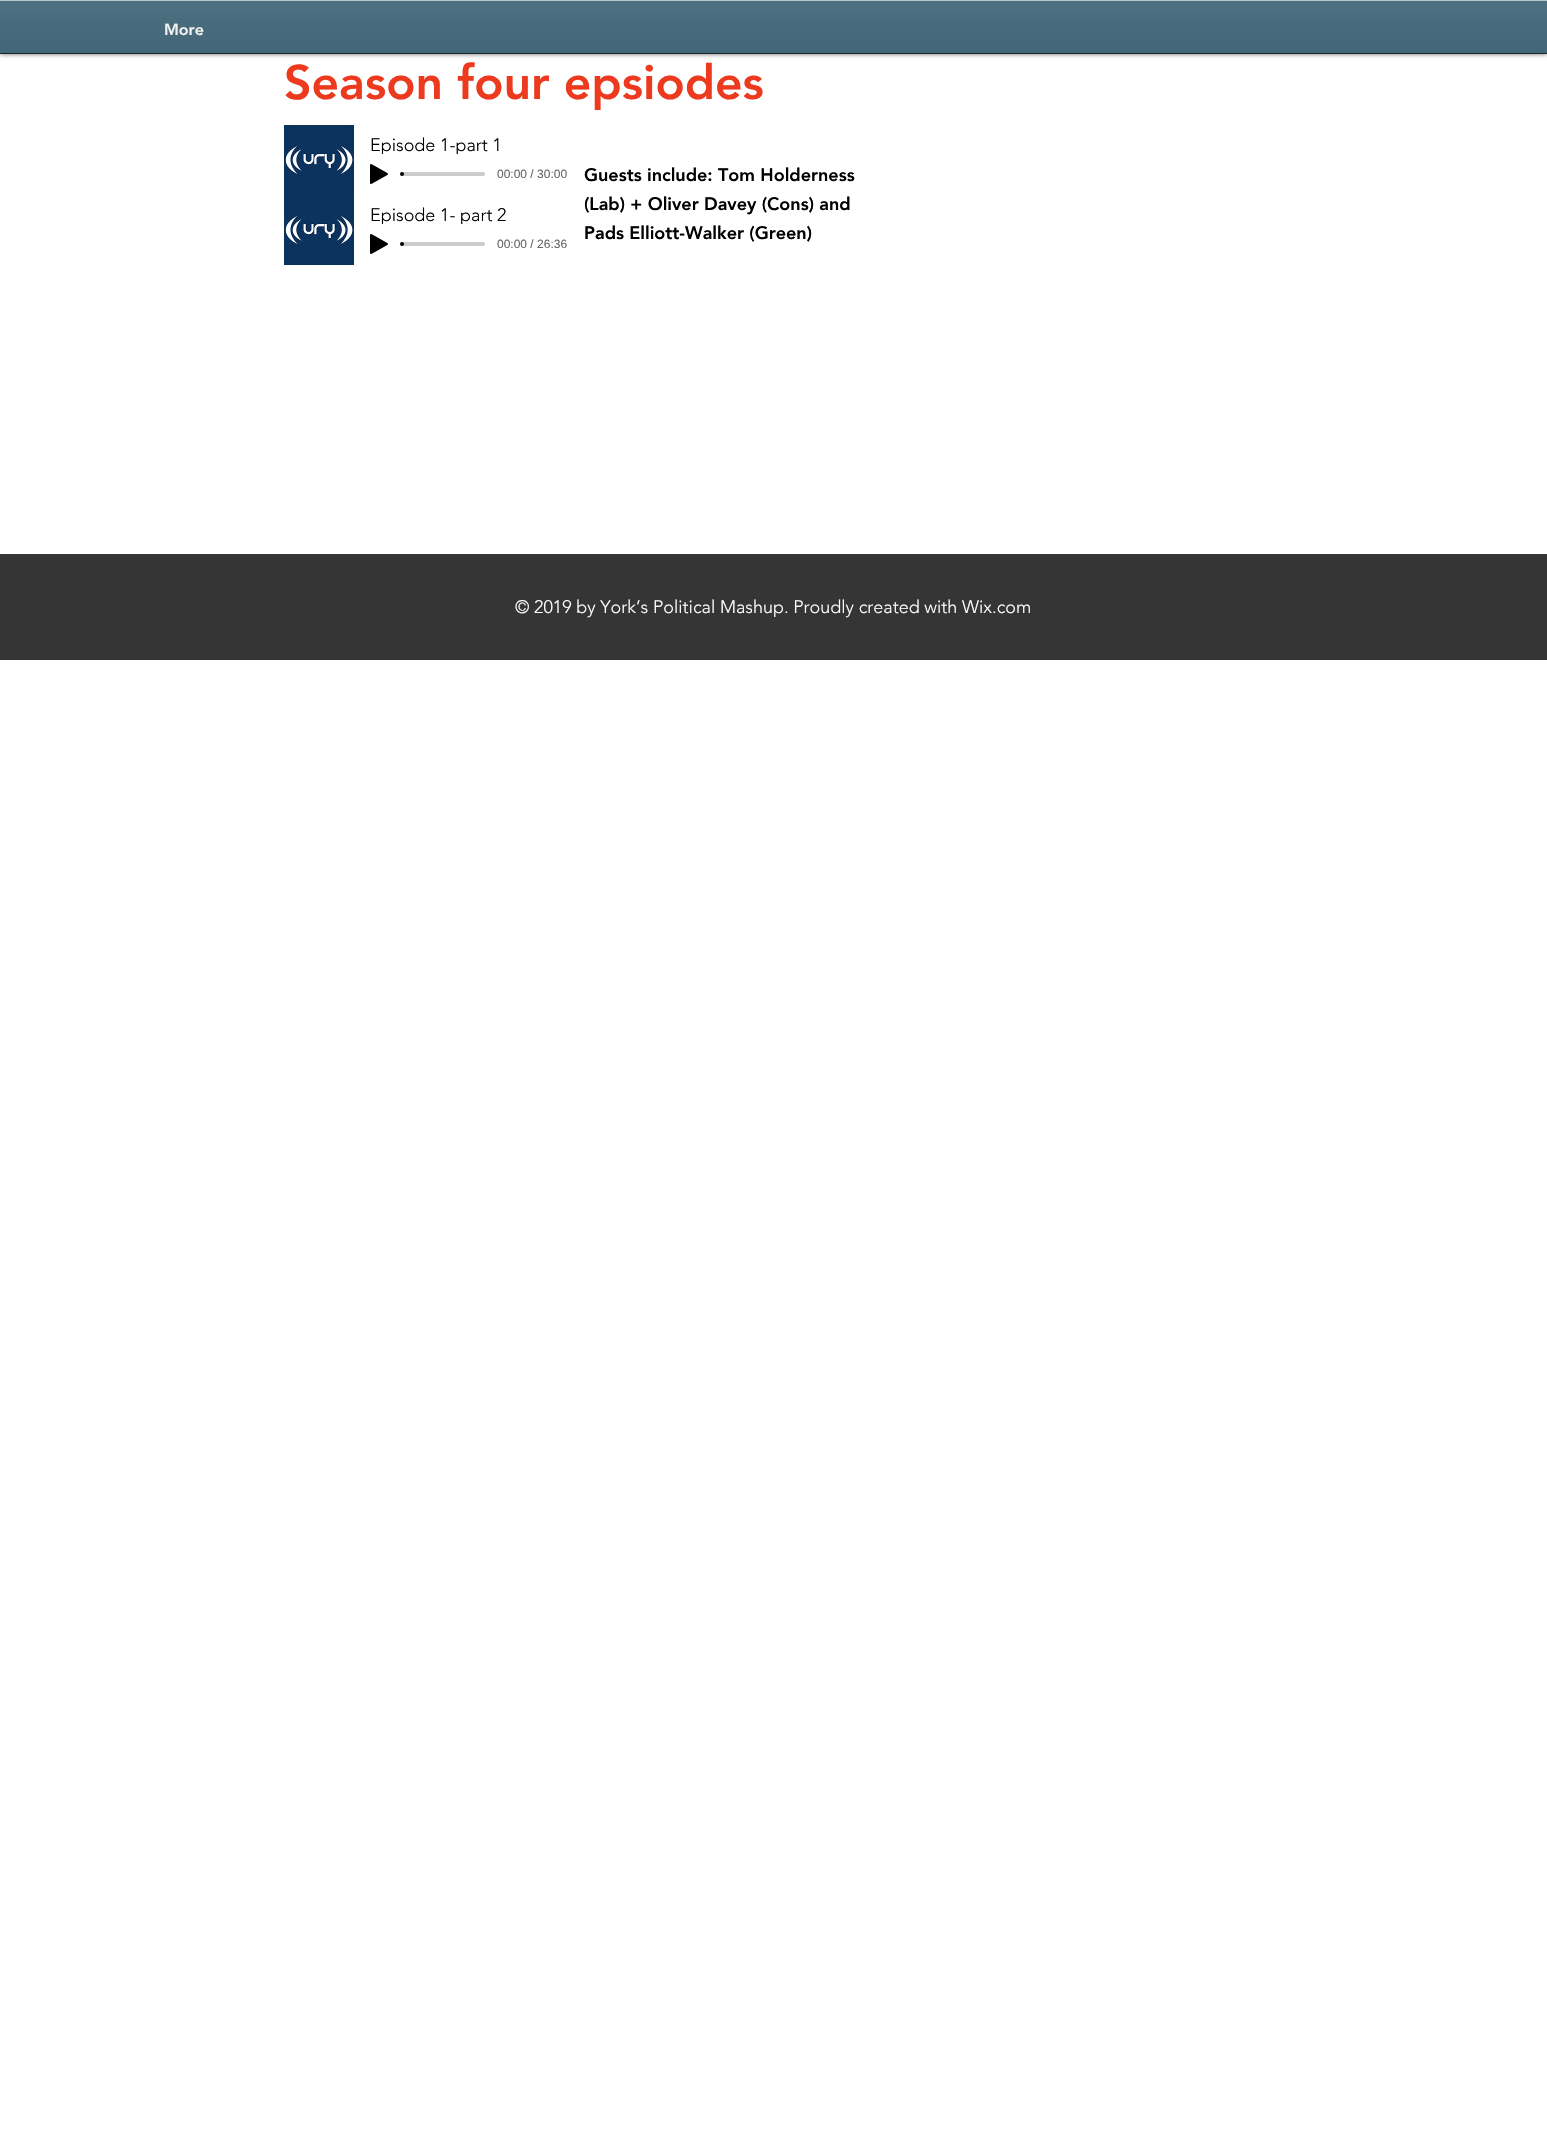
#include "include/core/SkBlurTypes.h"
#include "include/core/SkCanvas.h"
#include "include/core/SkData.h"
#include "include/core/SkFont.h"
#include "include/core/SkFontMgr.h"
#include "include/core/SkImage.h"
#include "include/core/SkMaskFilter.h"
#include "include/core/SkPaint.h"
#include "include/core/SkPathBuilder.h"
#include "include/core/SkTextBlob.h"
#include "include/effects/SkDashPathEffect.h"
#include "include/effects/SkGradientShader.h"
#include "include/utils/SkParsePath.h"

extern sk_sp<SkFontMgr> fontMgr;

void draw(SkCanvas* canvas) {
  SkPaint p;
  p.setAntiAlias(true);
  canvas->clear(SK_ColorWHITE);
  p.setColor(SkColorSetARGB(153, 0, 0, 0));
  p.setMaskFilter(SkMaskFilter::MakeBlur(kNormal_SkBlurStyle, 2.5f));
  canvas->drawRect(SkRect::MakeLTRB(0, 0, 1547, 54), p);
  p.setMaskFilter(nullptr);
  p.setColor(SkColorSetRGB(16, 63, 84));
  canvas->drawRect(SkRect::MakeLTRB(0, 1, 1547, 53), p);
  canvas->drawImageRect(SkImages::DeferredFromEncodedData(SkData::MakeFromFileName("images/1.png")), SkRect::MakeLTRB(0, 1, 1547, 53), SkSamplingOptions());
  p.setColor(SkColorSetRGB(26, 41, 48));
  canvas->drawRect(SkRect::MakeLTRB(0, 53, 1547, 54), p);
  p.setColor(SkColorSetRGB(184, 198, 204));
  canvas->drawRect(SkRect::MakeLTRB(0, 0, 1547, 1), p);
  canvas->drawImageRect(SkImages::DeferredFromEncodedData(SkData::MakeFromFileName("images/2.png")), SkRect::MakeLTRB(284, 125, 354, 195), SkSamplingOptions());
  canvas->drawImageRect(SkImages::DeferredFromEncodedData(SkData::MakeFromFileName("images/3.png")), SkRect::MakeLTRB(370, 164, 388, 184), SkSamplingOptions());
  p.setColor(SkColorSetRGB(204, 204, 204));
  canvas->drawRoundRect(SkRect::MakeLTRB(402, 172, 485, 176), 2, 2, p);
  p.setColor(SK_ColorBLACK);
  canvas->drawCircle(402, 174, 2, p);
  canvas->drawImageRect(SkImages::DeferredFromEncodedData(SkData::MakeFromFileName("images/2.png")), SkRect::MakeLTRB(284, 195, 354, 265), SkSamplingOptions());
  canvas->drawImageRect(SkImages::DeferredFromEncodedData(SkData::MakeFromFileName("images/3.png")), SkRect::MakeLTRB(370, 234, 388, 254), SkSamplingOptions());
  p.setColor(SkColorSetRGB(204, 204, 204));
  canvas->drawRoundRect(SkRect::MakeLTRB(402, 242, 485, 246), 2, 2, p);
  p.setColor(SK_ColorBLACK);
  canvas->drawCircle(402, 244, 2, p);
  p.setColor(SkColorSetRGB(53, 53, 53));
  canvas->drawRect(SkRect::MakeLTRB(0, 554, 1547, 660), p);
  SkFont font1(fontMgr->matchFamilyStyle("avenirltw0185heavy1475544", SkFontStyle(900, SkFontStyle::kNormal_Width, SkFontStyle::kUpright_Slant)), 16);
  font1.setSubpixel(true);
  p.setColor(SkColorSetRGB(242, 242, 242));
  canvas->drawString("More", 164, 35, font1, p);
  SkFont font2(fontMgr->matchFamilyStyle("avenirltw0185heavy1475544", SkFontStyle(900, SkFontStyle::kNormal_Width, SkFontStyle::kUpright_Slant)), 48);
  font2.setSubpixel(true);
  p.setColor(SkColorSetRGB(237, 58, 30));
  canvas->drawString("Season four epsiodes", 284, 99, font2, p);
  canvas->save();
  canvas->clipRect(SkRect::MakeLTRB(370, 136, 501, 154));
  SkFont font3(fontMgr->matchFamilyStyle("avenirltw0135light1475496", SkFontStyle(300, SkFontStyle::kNormal_Width, SkFontStyle::kUpright_Slant)), 18);
  font3.setSubpixel(true);
  p.setColor(SK_ColorBLACK);
  canvas->drawString("Episode 1-part 1", 370, 151, font3, p);
  canvas->restore();
  SkFont font4(fontMgr->matchFamilyStyle("Liberation Sans", SkFontStyle::Normal()), 12);
  font4.setSubpixel(true);
  p.setColor(SkColorSetRGB(102, 102, 102));
  canvas->drawString("00:00 / 30:00", 497, 178, font4, p);
  canvas->save();
  canvas->clipRect(SkRect::MakeLTRB(370, 206, 506, 224));
  p.setColor(SK_ColorBLACK);
  canvas->drawString("Episode 1- part 2", 370, 221, font3, p);
  canvas->restore();
  p.setColor(SkColorSetRGB(102, 102, 102));
  canvas->drawString("00:00 / 26:36", 497, 248, font4, p);
  SkFont font5(fontMgr->matchFamilyStyle("avenirltw0185heavy1475544", SkFontStyle(900, SkFontStyle::kNormal_Width, SkFontStyle::kUpright_Slant)), 18);
  font5.setSubpixel(true);
  p.setColor(SK_ColorBLACK);
  canvas->drawString("Guests include: Tom Holderness", 584, 181, font5, p);
  canvas->drawString("(Lab) + Oliver Davey (Cons) and", 584, 210, font5, p);
  canvas->drawString("Pads Elliott-Walker (Green)", 584, 239, font5, p);
  p.setColor(SK_ColorWHITE);
  canvas->drawString("© 2019 by York’s Political Mashup. Proudly created with Wix.com", 515, 613, font3, p);
}
